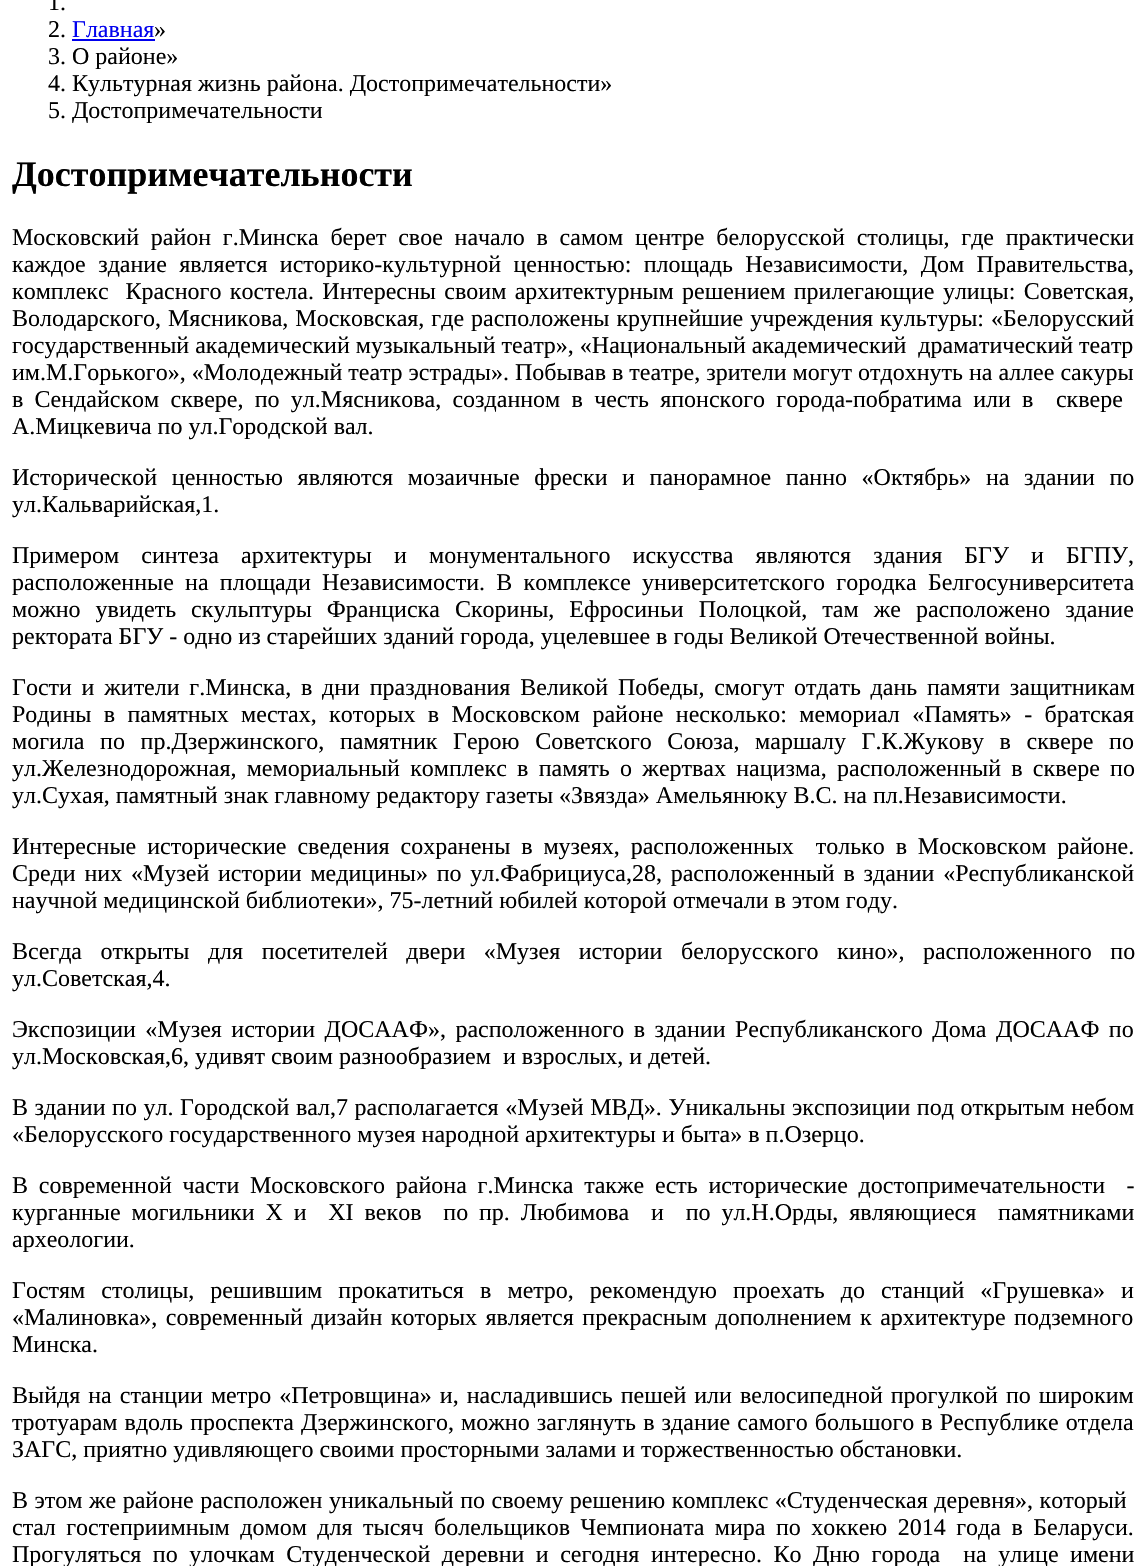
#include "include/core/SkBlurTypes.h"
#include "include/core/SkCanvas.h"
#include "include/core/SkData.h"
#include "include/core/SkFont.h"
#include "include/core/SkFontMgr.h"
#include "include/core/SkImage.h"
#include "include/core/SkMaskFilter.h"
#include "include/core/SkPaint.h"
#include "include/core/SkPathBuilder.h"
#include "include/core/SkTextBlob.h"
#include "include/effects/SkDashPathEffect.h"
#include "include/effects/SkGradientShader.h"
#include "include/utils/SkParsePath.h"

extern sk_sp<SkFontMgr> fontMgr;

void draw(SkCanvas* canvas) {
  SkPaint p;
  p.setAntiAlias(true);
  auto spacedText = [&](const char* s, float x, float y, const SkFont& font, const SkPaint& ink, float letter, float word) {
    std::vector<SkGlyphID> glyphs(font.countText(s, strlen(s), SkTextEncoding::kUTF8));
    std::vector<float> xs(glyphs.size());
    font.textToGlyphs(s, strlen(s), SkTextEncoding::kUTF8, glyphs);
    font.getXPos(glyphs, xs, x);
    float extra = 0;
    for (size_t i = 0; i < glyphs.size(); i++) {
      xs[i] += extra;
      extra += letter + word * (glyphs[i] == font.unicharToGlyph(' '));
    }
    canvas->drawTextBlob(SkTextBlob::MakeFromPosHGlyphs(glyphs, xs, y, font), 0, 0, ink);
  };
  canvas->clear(SK_ColorWHITE);
  p.setColor(SkColorSetRGB(0, 0, 238));
  canvas->drawRect(SkRect::MakeLTRB(72, 39, 155, 41), p);
  SkFont font1(fontMgr->matchFamilyStyle("Liberation Serif", SkFontStyle::Normal()), 24);
  font1.setSubpixel(true);
  p.setColor(SK_ColorBLACK);
  canvas->drawString("1.", 48, 10, font1, p);
  canvas->drawString("2.", 48, 37, font1, p);
  p.setColor(SkColorSetRGB(0, 0, 238));
  canvas->drawString("Главная", 72, 37, font1, p);
  p.setColor(SK_ColorBLACK);
  canvas->drawString("»", 154, 37, font1, p);
  canvas->drawString("3. О районе»", 48, 64, font1, p);
  canvas->drawString("4. Культурная жизнь района. Достопримечательности»", 48, 91, font1, p);
  canvas->drawString("5. Достопримечательности", 48, 118, font1, p);
  SkFont font2(fontMgr->matchFamilyStyle("Liberation Serif", SkFontStyle::Bold()), 36);
  font2.setSubpixel(true);
  canvas->drawString("Достопримечательности", 12, 186, font2, p);
  spacedText("Московский район г.Минска берет свое начало в самом центре белорусской столицы, где практически", 12, 245, font1, p, 0, 5.75f);
  spacedText("каждое здание является историко-культурной ценностью: площадь Независимости, Дом Правительства,", 12, 272, font1, p, 0, 6.4f);
  spacedText("комплекс  Красного костела. Интересны своим архитектурным решением прилегающие улицы: Советская,", 12, 299, font1, p, 0, 2.4f);
  spacedText("Володарского, Мясникова, Московская, где расположены крупнейшие учреждения культуры: «Белорусский", 12, 326, font1, p, 0, 1);
  canvas->drawString("государственный академический музыкальный театр», «Национальный академический  драматический театр", 12, 353, font1, p);
  canvas->drawString("им.М.Горького», «Молодежный театр эстрады». Побывав в театре, зрители могут отдохнуть на аллее сакуры", 12, 380, font1, p);
  spacedText("в Сендайском сквере, по ул.Мясникова, созданном в честь японского города-побратима или в  сквере", 12, 407, font1, p, 0, 5.25f);
  canvas->drawString("А.Мицкевича по ул.Городской вал.", 12, 434, font1, p);
  spacedText("Исторической ценностью являются мозаичные фрески и панорамное панно «Октябрь» на здании по", 12, 485, font1, p, 0, 8.6f);
  canvas->drawString("ул.Кальварийская,1.", 12, 512, font1, p);
  spacedText("Примером синтеза архитектуры и монументального искусства являются здания БГУ и БГПУ,", 12, 563, font1, p, 0, 16.1f);
  spacedText("расположенные на площади Независимости. В комплексе университетского городка Белгосуниверситета", 12, 590, font1, p, 0, 5.25f);
  spacedText("можно увидеть скульптуры Франциска Скорины, Ефросиньи Полоцкой, там же расположено здание", 12, 617, font1, p, 0, 9);
  canvas->drawString("ректората БГУ - одно из старейших зданий города, уцелевшее в годы Великой Отечественной войны.", 12, 644, font1, p);
  spacedText("Гости и жители г.Минска, в дни празднования Великой Победы, смогут отдать дань памяти защитникам", 12, 695, font1, p, 0, 3.75f);
  spacedText("Родины в памятных местах, которых в Московском районе несколько: мемориал «Память» - братская", 12, 722, font1, p, 0, 6.4f);
  spacedText("могила по пр.Дзержинского, памятник Герою Советского Союза, маршалу Г.К.Жукову в сквере по", 12, 749, font1, p, 0, 9.6f);
  spacedText("ул.Железнодорожная, мемориальный комплекс в память о жертвах нацизма, расположенный в сквере по", 12, 776, font1, p, 0, 4.25f);
  canvas->drawString("ул.Сухая, памятный знак главному редактору газеты «Звязда» Амельянюку В.С. на пл.Независимости.", 12, 803, font1, p);
  spacedText("Интересные исторические сведения сохранены в музеях, расположенных  только в Московском районе.", 12, 854, font1, p, 0, 4.9f);
  spacedText("Среди них «Музей истории медицины» по ул.Фабрициуса,28, расположенный в здании «Республиканской", 12, 881, font1, p, 0, 2.75f);
  canvas->drawString("научной медицинской библиотеки», 75-летний юбилей которой отмечали в этом году.", 12, 908, font1, p);
  spacedText("Всегда открыты для посетителей двери «Музея истории белорусского кино», расположенного по", 12, 959, font1, p, 0, 12.5f);
  canvas->drawString("ул.Советская,4.", 12, 986, font1, p);
  spacedText("Экспозиции «Музея истории ДОСААФ», расположенного в здании Республиканского Дома ДОСААФ по", 12, 1037, font1, p, 0, 3.5f);
  canvas->drawString("ул.Московская,6, удивят своим разнообразием  и взрослых, и детей.", 12, 1064, font1, p);
  spacedText("В здании по ул. Городской вал,7 располагается «Музей МВД». Уникальны экспозиции под открытым небом", 12, 1115, font1, p, 0, 0.6f);
  canvas->drawString("«Белорусского государственного музея народной архитектуры и быта» в п.Озерцо.", 12, 1142, font1, p);
  spacedText("В современной части Московского района г.Минска также есть исторические достопримечательности  -", 12, 1193, font1, p, 0, 4.75f);
  spacedText("курганные могильники Х и  XI веков  по пр. Любимова  и  по ул.Н.Орды, являющиеся  памятниками", 12, 1220, font1, p, 0, 4.9f);
  canvas->drawString("археологии.", 12, 1247, font1, p);
  spacedText("Гостям столицы, решившим прокатиться в метро, рекомендую проехать до станций «Грушевка» и", 12, 1298, font1, p, 0, 10.1f);
  spacedText("«Малиновка», современный дизайн которых является прекрасным дополнением к архитектуре подземного", 12, 1325, font1, p, 0, 2.5f);
  canvas->drawString("Минска.", 12, 1352, font1, p);
  spacedText("Выйдя на станции метро «Петровщина» и, насладившись пешей или велосипедной прогулкой по широким", 12, 1403, font1, p, 0, 2);
  spacedText("тротуарам вдоль проспекта Дзержинского, можно заглянуть в здание самого большого в Республике отдела", 12, 1430, font1, p, 0, 1.1f);
  canvas->drawString("ЗАГС, приятно удивляющего своими просторными залами и торжественностью обстановки.", 12, 1457, font1, p);
  spacedText("В этом же районе расположен уникальный по своему решению комплекс «Студенческая деревня», который", 12, 1508, font1, p, 0, 0.5f);
  spacedText("стал гостеприимным домом для тысяч болельщиков Чемпионата мира по хоккею 2014 года в Беларуси.", 12, 1535, font1, p, 0, 4.5f);
  spacedText("Прогуляться по улочкам Студенческой деревни и сегодня интересно. Ко Дню города  на улице имени", 12, 1562, font1, p, 0, 5.5f);
}
